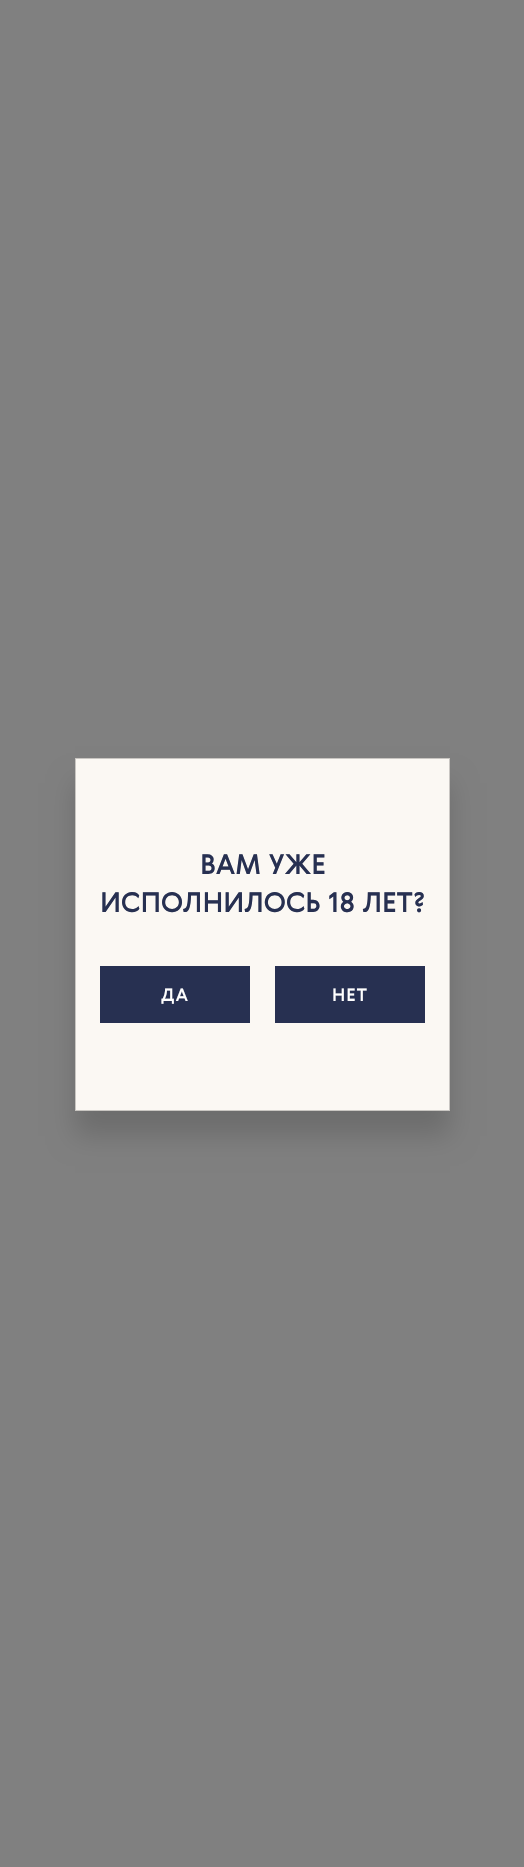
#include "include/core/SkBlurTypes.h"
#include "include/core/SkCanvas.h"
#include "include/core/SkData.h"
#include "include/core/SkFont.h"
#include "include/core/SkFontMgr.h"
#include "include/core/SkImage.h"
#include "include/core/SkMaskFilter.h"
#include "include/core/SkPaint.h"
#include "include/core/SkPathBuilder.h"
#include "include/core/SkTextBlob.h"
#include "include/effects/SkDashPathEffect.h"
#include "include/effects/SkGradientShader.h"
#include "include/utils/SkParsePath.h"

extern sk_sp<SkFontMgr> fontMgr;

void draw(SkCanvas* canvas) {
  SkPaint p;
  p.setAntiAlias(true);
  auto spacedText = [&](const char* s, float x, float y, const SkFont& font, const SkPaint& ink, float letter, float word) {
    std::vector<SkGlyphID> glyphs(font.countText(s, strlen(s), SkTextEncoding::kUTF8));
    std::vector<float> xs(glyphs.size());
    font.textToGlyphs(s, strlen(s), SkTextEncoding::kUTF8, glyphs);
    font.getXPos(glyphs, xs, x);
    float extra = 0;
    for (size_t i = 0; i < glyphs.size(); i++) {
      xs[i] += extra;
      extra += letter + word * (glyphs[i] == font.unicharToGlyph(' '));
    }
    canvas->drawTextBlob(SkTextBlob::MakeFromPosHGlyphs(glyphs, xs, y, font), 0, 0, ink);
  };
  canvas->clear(SkColorSetRGB(128, 128, 128));
  p.setColor(SkColorSetARGB(38, 0, 0, 0));
  p.setMaskFilter(SkMaskFilter::MakeBlur(kNormal_SkBlurStyle, 12.5f));
  canvas->drawRect(SkRect::MakeLTRB(75, 783, 450, 1136), p);
  p.setMaskFilter(nullptr);
  p.setColor(SkColorSetRGB(251, 248, 243));
  canvas->drawRect(SkRect::MakeLTRB(75.5f, 758.5f, 449.5f, 1110.5f), p);
  p.setStyle(SkPaint::kStroke_Style);
  p.setStrokeWidth(1);
  p.setColor(SkColorSetRGB(201, 198, 194));
  canvas->drawRect(SkRect::MakeLTRB(75.5f, 758.5f, 449.5f, 1110.5f), p);
  p.setStyle(SkPaint::kFill_Style);
  p.setColor(SkColorSetRGB(39, 48, 81));
  canvas->drawRect(SkRect::MakeLTRB(100, 966, 250, 1023), p);
  canvas->drawRect(SkRect::MakeLTRB(275, 966, 425, 1023), p);
  SkFont font1(fontMgr->matchFamilyStyle("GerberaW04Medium", SkFontStyle(500, SkFontStyle::kNormal_Width, SkFontStyle::kUpright_Slant)), 27.5f);
  font1.setSubpixel(true);
  canvas->drawString("ВАМ УЖЕ", 200, 874, font1, p);
  canvas->drawString("ИСПОЛНИЛОСЬ 18 ЛЕТ?", 100, 912, font1, p);
  SkFont font2(fontMgr->matchFamilyStyle("GerberaW04Medium", SkFontStyle(500, SkFontStyle::kNormal_Width, SkFontStyle::kUpright_Slant)), 17.5f);
  font2.setSubpixel(true);
  p.setColor(SK_ColorWHITE);
  spacedText("ДА", 161, 1001, font2, p, 1, 0);
  spacedText("НЕТ", 332, 1001, font2, p, 1, 0);
}
